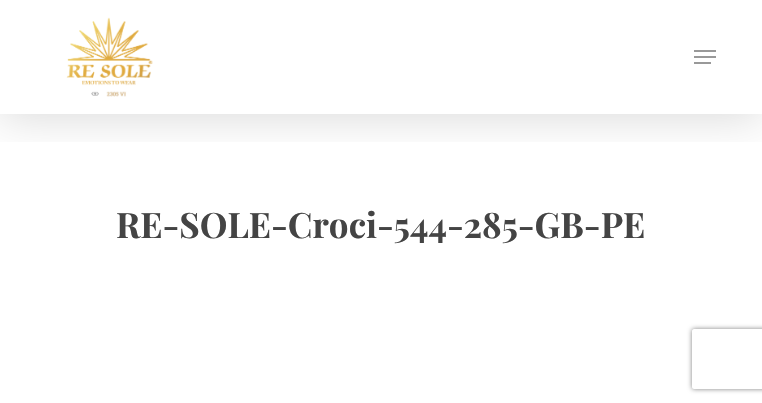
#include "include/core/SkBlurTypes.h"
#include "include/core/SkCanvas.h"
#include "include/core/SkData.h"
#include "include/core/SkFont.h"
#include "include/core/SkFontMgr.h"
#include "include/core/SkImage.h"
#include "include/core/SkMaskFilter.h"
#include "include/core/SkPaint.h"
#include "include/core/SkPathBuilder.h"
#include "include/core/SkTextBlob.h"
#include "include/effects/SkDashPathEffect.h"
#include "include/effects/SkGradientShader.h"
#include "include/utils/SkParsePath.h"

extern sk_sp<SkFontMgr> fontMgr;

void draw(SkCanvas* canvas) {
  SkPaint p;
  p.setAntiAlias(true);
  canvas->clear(SK_ColorWHITE);
  canvas->save();
  canvas->clipRect(SkRect::MakeLTRB(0, 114, 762, 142));
  p.setColor(SkColorSetARGB(38, 0, 0, 0));
  p.setMaskFilter(SkMaskFilter::MakeBlur(kNormal_SkBlurStyle, 22.5f));
  canvas->drawRect(SkRect::MakeLTRB(0, 3, 762, 117), p);
  p.setMaskFilter(nullptr);
  canvas->restore();
  canvas->drawImageRect(SkImages::DeferredFromEncodedData(SkData::MakeFromFileName("images/1.png")), SkRect::MakeLTRB(66, 17, 153, 97), SkSamplingOptions());
  p.setColor(SkColorSetRGB(153, 153, 153));
  canvas->drawRect(SkRect::MakeLTRB(694, 50, 716, 52), p);
  canvas->drawRect(SkRect::MakeLTRB(694, 62, 711, 64), p);
  canvas->drawRect(SkRect::MakeLTRB(694, 56, 716, 58), p);
  canvas->save();
  canvas->clipPath(SkPathBuilder(SkPathFillType::kEvenOdd).moveTo(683, 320).lineTo(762, 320).lineTo(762, 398).lineTo(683, 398).close().moveTo(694, 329).lineTo(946, 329).cubicTo(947, 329, 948, 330, 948, 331).lineTo(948, 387).cubicTo(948, 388, 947, 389, 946, 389).lineTo(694, 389).cubicTo(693, 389, 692, 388, 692, 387).lineTo(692, 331).cubicTo(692, 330, 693, 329, 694, 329).close().detach(), true);
  p.setColor(SkColorSetRGB(128, 128, 128));
  p.setMaskFilter(SkMaskFilter::MakeBlur(kNormal_SkBlurStyle, 2.5f));
  canvas->drawRoundRect(SkRect::MakeLTRB(692, 329, 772, 389), 2, 2, p);
  p.setMaskFilter(nullptr);
  canvas->restore();
  SkFont font1(fontMgr->matchFamilyStyle("Playfair Display", SkFontStyle::Bold()), 35);
  font1.setSubpixel(true);
  p.setColor(SkColorSetRGB(68, 68, 68));
  canvas->drawString("RE-SOLE-Croci-544-285-GB-PE", 116, 238, font1, p);
}
